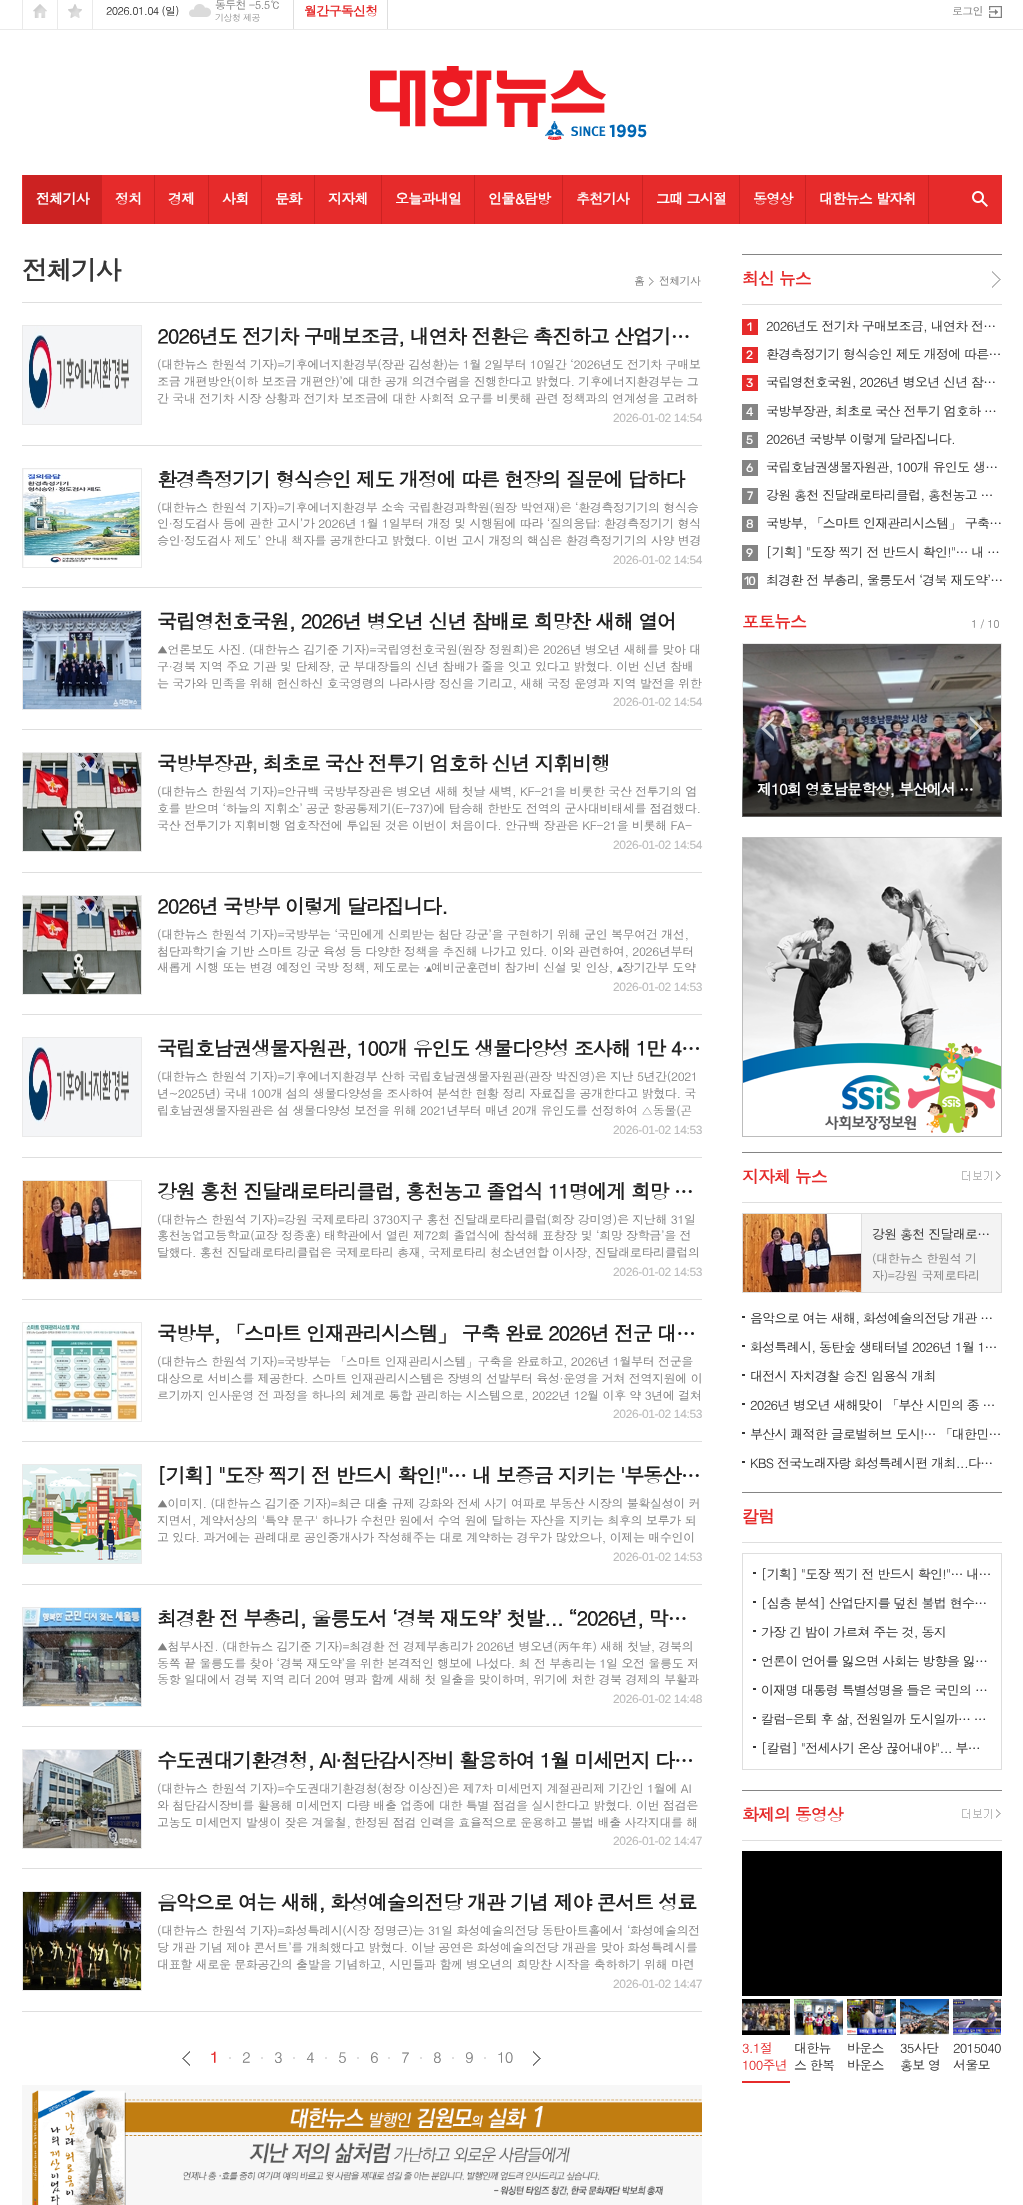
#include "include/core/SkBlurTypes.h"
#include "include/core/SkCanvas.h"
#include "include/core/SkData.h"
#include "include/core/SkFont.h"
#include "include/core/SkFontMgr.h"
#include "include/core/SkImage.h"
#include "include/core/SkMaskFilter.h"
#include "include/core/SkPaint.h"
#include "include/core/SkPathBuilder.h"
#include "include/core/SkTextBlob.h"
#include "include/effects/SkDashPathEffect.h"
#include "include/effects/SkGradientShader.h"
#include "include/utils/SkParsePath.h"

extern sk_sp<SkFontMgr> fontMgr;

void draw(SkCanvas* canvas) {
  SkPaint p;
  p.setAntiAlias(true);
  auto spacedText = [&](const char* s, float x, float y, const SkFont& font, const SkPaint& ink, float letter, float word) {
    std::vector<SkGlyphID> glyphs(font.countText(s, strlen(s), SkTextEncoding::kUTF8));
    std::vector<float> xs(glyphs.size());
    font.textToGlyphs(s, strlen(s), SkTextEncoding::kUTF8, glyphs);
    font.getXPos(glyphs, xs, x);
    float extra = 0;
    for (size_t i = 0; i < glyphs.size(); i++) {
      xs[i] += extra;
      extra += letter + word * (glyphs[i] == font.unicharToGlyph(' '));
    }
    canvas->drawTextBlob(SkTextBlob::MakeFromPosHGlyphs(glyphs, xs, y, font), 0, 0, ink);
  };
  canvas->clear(SK_ColorWHITE);
  p.setColor(SkColorSetRGB(234, 234, 234));
  canvas->drawRect(SkRect::MakeLTRB(0, 29, 1023, 30), p);
  canvas->drawRect(SkRect::MakeLTRB(92, 0, 93, 29), p);
  canvas->drawRect(SkRect::MakeLTRB(22, 0, 23, 29), p);
  canvas->drawImageRect(SkImages::DeferredFromEncodedData(SkData::MakeFromFileName("images/1.png")), SkRect::MakeLTRB(33, 4, 47, 18), SkSamplingOptions());
  canvas->drawRect(SkRect::MakeLTRB(57, 0, 58, 29), p);
  canvas->drawImageRect(SkImages::DeferredFromEncodedData(SkData::MakeFromFileName("images/2.png")), SkRect::MakeLTRB(68, 4, 82, 18), SkSamplingOptions());
  canvas->drawImageRect(SkImages::DeferredFromEncodedData(SkData::MakeFromFileName("images/3.png")), SkRect::MakeLTRB(189, 4, 211, 17), SkSamplingOptions());
  p.setColor(SkColorSetRGB(222, 222, 222));
  canvas->drawRect(SkRect::MakeLTRB(387, 0, 388, 29), p);
  canvas->drawRect(SkRect::MakeLTRB(293, 0, 294, 29), p);
  canvas->drawImageRect(SkImages::DeferredFromEncodedData(SkData::MakeFromFileName("images/4.png")), SkRect::MakeLTRB(989, 6, 1002, 18), SkSamplingOptions());
  canvas->drawImageRect(SkImages::DeferredFromEncodedData(SkData::MakeFromFileName("images/5.png")), SkRect::MakeLTRB(370, 66, 647, 140), SkSamplingOptions());
  p.setColor(SkColorSetRGB(230, 43, 43));
  canvas->drawRect(SkRect::MakeLTRB(102, 175, 1002, 224), p);
  p.setColor(SkColorSetRGB(204, 34, 34));
  canvas->drawRect(SkRect::MakeLTRB(23, 175, 102, 224), p);
  p.setColor(SkColorSetRGB(230, 43, 43));
  canvas->drawRect(SkRect::MakeLTRB(22, 175, 23, 224), p);
  p.setColor(SkColorSetRGB(204, 34, 34));
  canvas->drawRect(SkRect::MakeLTRB(154, 175, 155, 224), p);
  canvas->drawRect(SkRect::MakeLTRB(208, 175, 209, 224), p);
  canvas->drawRect(SkRect::MakeLTRB(261, 175, 262, 224), p);
  canvas->drawRect(SkRect::MakeLTRB(314, 175, 315, 224), p);
  canvas->drawRect(SkRect::MakeLTRB(381, 175, 382, 224), p);
  canvas->drawRect(SkRect::MakeLTRB(474, 175, 475, 224), p);
  canvas->drawRect(SkRect::MakeLTRB(562, 175, 563, 224), p);
  canvas->drawRect(SkRect::MakeLTRB(642, 175, 643, 224), p);
  canvas->drawRect(SkRect::MakeLTRB(739, 175, 740, 224), p);
  canvas->drawRect(SkRect::MakeLTRB(805, 175, 806, 224), p);
  canvas->drawRect(SkRect::MakeLTRB(928, 175, 929, 224), p);
  canvas->drawImageRect(SkImages::DeferredFromEncodedData(SkData::MakeFromFileName("images/6.png")), SkRect::MakeLTRB(972, 191, 988, 207), SkSamplingOptions());
  p.setColor(SkColorSetRGB(222, 222, 222));
  canvas->drawRect(SkRect::MakeLTRB(22, 302, 702, 303), p);
  canvas->drawImageRect(SkImages::DeferredFromEncodedData(SkData::MakeFromFileName("images/7.png")), SkRect::MakeLTRB(649, 277, 654, 286), SkSamplingOptions());
  canvas->drawRect(SkRect::MakeLTRB(22, 445, 702, 446), p);
  p.setStyle(SkPaint::kStroke_Style);
  p.setStrokeWidth(1);
  p.setColor(SkColorSetRGB(234, 234, 234));
  canvas->drawRect(SkRect::MakeLTRB(22.5f, 325.5f, 141.5f, 424.5f), p);
  canvas->drawImageRect(SkImages::DeferredFromEncodedData(SkData::MakeFromFileName("images/8.png")), SkRect::MakeLTRB(23, 326, 141, 424), SkSamplingOptions());
  p.setStyle(SkPaint::kFill_Style);
  p.setColor(SkColorSetRGB(222, 222, 222));
  canvas->drawRect(SkRect::MakeLTRB(22, 587, 702, 588), p);
  p.setStyle(SkPaint::kStroke_Style);
  p.setColor(SkColorSetRGB(234, 234, 234));
  canvas->drawRect(SkRect::MakeLTRB(22.5f, 468.5f, 141.5f, 567.5f), p);
  canvas->drawImageRect(SkImages::DeferredFromEncodedData(SkData::MakeFromFileName("images/9.png")), SkRect::MakeLTRB(23, 469, 141, 567), SkSamplingOptions());
  p.setStyle(SkPaint::kFill_Style);
  p.setColor(SkColorSetRGB(222, 222, 222));
  canvas->drawRect(SkRect::MakeLTRB(22, 729, 702, 730), p);
  p.setStyle(SkPaint::kStroke_Style);
  p.setColor(SkColorSetRGB(234, 234, 234));
  canvas->drawRect(SkRect::MakeLTRB(22.5f, 610.5f, 141.5f, 709.5f), p);
  canvas->drawImageRect(SkImages::DeferredFromEncodedData(SkData::MakeFromFileName("images/10.png")), SkRect::MakeLTRB(23, 611, 141, 709), SkSamplingOptions());
  p.setStyle(SkPaint::kFill_Style);
  p.setColor(SkColorSetRGB(222, 222, 222));
  canvas->drawRect(SkRect::MakeLTRB(22, 872, 702, 873), p);
  p.setStyle(SkPaint::kStroke_Style);
  p.setColor(SkColorSetRGB(234, 234, 234));
  canvas->drawRect(SkRect::MakeLTRB(22.5f, 752.5f, 141.5f, 851.5f), p);
  canvas->drawImageRect(SkImages::DeferredFromEncodedData(SkData::MakeFromFileName("images/11.png")), SkRect::MakeLTRB(23, 753, 141, 851), SkSamplingOptions());
  p.setStyle(SkPaint::kFill_Style);
  p.setColor(SkColorSetRGB(222, 222, 222));
  canvas->drawRect(SkRect::MakeLTRB(22, 1014, 702, 1015), p);
  p.setStyle(SkPaint::kStroke_Style);
  p.setColor(SkColorSetRGB(234, 234, 234));
  canvas->drawRect(SkRect::MakeLTRB(22.5f, 895.5f, 141.5f, 994.5f), p);
  canvas->drawImageRect(SkImages::DeferredFromEncodedData(SkData::MakeFromFileName("images/11.png")), SkRect::MakeLTRB(23, 896, 141, 994), SkSamplingOptions());
  p.setStyle(SkPaint::kFill_Style);
  p.setColor(SkColorSetRGB(222, 222, 222));
  canvas->drawRect(SkRect::MakeLTRB(22, 1157, 702, 1158), p);
  p.setStyle(SkPaint::kStroke_Style);
  p.setColor(SkColorSetRGB(234, 234, 234));
  canvas->drawRect(SkRect::MakeLTRB(22.5f, 1037.5f, 141.5f, 1136.5f), p);
  canvas->drawImageRect(SkImages::DeferredFromEncodedData(SkData::MakeFromFileName("images/8.png")), SkRect::MakeLTRB(23, 1038, 141, 1136), SkSamplingOptions());
  p.setStyle(SkPaint::kFill_Style);
  p.setColor(SkColorSetRGB(222, 222, 222));
  canvas->drawRect(SkRect::MakeLTRB(22, 1299, 702, 1300), p);
  p.setStyle(SkPaint::kStroke_Style);
  p.setColor(SkColorSetRGB(234, 234, 234));
  canvas->drawRect(SkRect::MakeLTRB(22.5f, 1180.5f, 141.5f, 1279.5f), p);
  canvas->drawImageRect(SkImages::DeferredFromEncodedData(SkData::MakeFromFileName("images/12.png")), SkRect::MakeLTRB(23, 1181, 141, 1279), SkSamplingOptions());
  p.setStyle(SkPaint::kFill_Style);
  p.setColor(SkColorSetRGB(222, 222, 222));
  canvas->drawRect(SkRect::MakeLTRB(22, 1441, 702, 1442), p);
  p.setStyle(SkPaint::kStroke_Style);
  p.setColor(SkColorSetRGB(234, 234, 234));
  canvas->drawRect(SkRect::MakeLTRB(22.5f, 1322.5f, 141.5f, 1421.5f), p);
  canvas->drawImageRect(SkImages::DeferredFromEncodedData(SkData::MakeFromFileName("images/13.png")), SkRect::MakeLTRB(23, 1323, 138, 1421), SkSamplingOptions());
  p.setStyle(SkPaint::kFill_Style);
  p.setColor(SkColorSetRGB(222, 222, 222));
  canvas->drawRect(SkRect::MakeLTRB(22, 1584, 702, 1585), p);
  p.setStyle(SkPaint::kStroke_Style);
  p.setColor(SkColorSetRGB(234, 234, 234));
  canvas->drawRect(SkRect::MakeLTRB(22.5f, 1464.5f, 141.5f, 1563.5f), p);
  canvas->drawImageRect(SkImages::DeferredFromEncodedData(SkData::MakeFromFileName("images/14.png")), SkRect::MakeLTRB(23, 1465, 141, 1563), SkSamplingOptions());
  p.setStyle(SkPaint::kFill_Style);
  p.setColor(SkColorSetRGB(222, 222, 222));
  canvas->drawRect(SkRect::MakeLTRB(22, 1726, 702, 1727), p);
  p.setStyle(SkPaint::kStroke_Style);
  p.setColor(SkColorSetRGB(234, 234, 234));
  canvas->drawRect(SkRect::MakeLTRB(22.5f, 1607.5f, 141.5f, 1706.5f), p);
  canvas->drawImageRect(SkImages::DeferredFromEncodedData(SkData::MakeFromFileName("images/15.png")), SkRect::MakeLTRB(23, 1608, 141, 1706), SkSamplingOptions());
  p.setStyle(SkPaint::kFill_Style);
  p.setColor(SkColorSetRGB(222, 222, 222));
  canvas->drawRect(SkRect::MakeLTRB(22, 1868, 702, 1869), p);
  p.setStyle(SkPaint::kStroke_Style);
  p.setColor(SkColorSetRGB(234, 234, 234));
  canvas->drawRect(SkRect::MakeLTRB(22.5f, 1749.5f, 141.5f, 1848.5f), p);
  canvas->drawImageRect(SkImages::DeferredFromEncodedData(SkData::MakeFromFileName("images/16.png")), SkRect::MakeLTRB(23, 1750, 141, 1848), SkSamplingOptions());
  p.setStyle(SkPaint::kFill_Style);
  p.setColor(SkColorSetRGB(222, 222, 222));
  canvas->drawRect(SkRect::MakeLTRB(22, 2011, 702, 2012), p);
  p.setStyle(SkPaint::kStroke_Style);
  p.setColor(SkColorSetRGB(234, 234, 234));
  canvas->drawRect(SkRect::MakeLTRB(22.5f, 1891.5f, 141.5f, 1990.5f), p);
  canvas->drawImageRect(SkImages::DeferredFromEncodedData(SkData::MakeFromFileName("images/17.png")), SkRect::MakeLTRB(23, 1892, 141, 1990), SkSamplingOptions());
  canvas->drawImageRect(SkImages::DeferredFromEncodedData(SkData::MakeFromFileName("images/18.png")), SkRect::MakeLTRB(182, 2051, 190, 2066), SkSamplingOptions());
  p.setStyle(SkPaint::kFill_Style);
  p.setColor(SkColorSetRGB(222, 222, 222));
  canvas->drawRect(SkRect::MakeLTRB(229, 2057, 231, 2059), p);
  canvas->drawRect(SkRect::MakeLTRB(261, 2057, 263, 2059), p);
  canvas->drawRect(SkRect::MakeLTRB(293, 2057, 295, 2059), p);
  canvas->drawRect(SkRect::MakeLTRB(325, 2057, 327, 2059), p);
  canvas->drawRect(SkRect::MakeLTRB(357, 2057, 359, 2059), p);
  canvas->drawRect(SkRect::MakeLTRB(388, 2057, 390, 2059), p);
  canvas->drawRect(SkRect::MakeLTRB(420, 2057, 422, 2059), p);
  canvas->drawRect(SkRect::MakeLTRB(452, 2057, 454, 2059), p);
  canvas->drawRect(SkRect::MakeLTRB(484, 2057, 486, 2059), p);
  canvas->drawImageRect(SkImages::DeferredFromEncodedData(SkData::MakeFromFileName("images/19.png")), SkRect::MakeLTRB(533, 2051, 541, 2066), SkSamplingOptions());
  canvas->drawImageRect(SkImages::DeferredFromEncodedData(SkData::MakeFromFileName("images/20.png")), SkRect::MakeLTRB(22, 2085, 702, 2205), SkSamplingOptions());
  p.setColor(SkColorSetRGB(132, 132, 132));
  canvas->drawRect(SkRect::MakeLTRB(742, 254, 1002, 255), p);
  p.setColor(SkColorSetRGB(222, 222, 222));
  canvas->drawRect(SkRect::MakeLTRB(742, 304, 1002, 305), p);
  canvas->drawImageRect(SkImages::DeferredFromEncodedData(SkData::MakeFromFileName("images/21.png")), SkRect::MakeLTRB(992, 271, 1001, 288), SkSamplingOptions());
  p.setColor(SkColorSetRGB(230, 43, 43));
  canvas->drawRect(SkRect::MakeLTRB(742, 319, 758, 335), p);
  canvas->drawRect(SkRect::MakeLTRB(742, 347, 758, 363), p);
  canvas->drawRect(SkRect::MakeLTRB(742, 375, 758, 391), p);
  p.setColor(SkColorSetRGB(132, 132, 132));
  canvas->drawRect(SkRect::MakeLTRB(742, 404, 758, 420), p);
  canvas->drawRect(SkRect::MakeLTRB(742, 432, 758, 448), p);
  canvas->drawRect(SkRect::MakeLTRB(742, 460, 758, 476), p);
  canvas->drawRect(SkRect::MakeLTRB(742, 488, 758, 504), p);
  canvas->drawRect(SkRect::MakeLTRB(742, 516, 758, 532), p);
  canvas->drawRect(SkRect::MakeLTRB(742, 545, 758, 561), p);
  canvas->drawRect(SkRect::MakeLTRB(742, 573, 758, 589), p);
  p.setStyle(SkPaint::kStroke_Style);
  p.setColor(SkColorSetRGB(234, 234, 234));
  canvas->drawRect(SkRect::MakeLTRB(742.5f, 643.5f, 1001.5f, 816.5f), p);
  canvas->drawImageRect(SkImages::DeferredFromEncodedData(SkData::MakeFromFileName("images/24.png")), SkRect::MakeLTRB(743, 644, 1001, 816), SkSamplingOptions());
  canvas->drawImageRect(SkImages::DeferredFromEncodedData(SkData::MakeFromFileName("images/22.png")), SkRect::MakeLTRB(760, 715, 776, 741), SkSamplingOptions());
  canvas->drawImageRect(SkImages::DeferredFromEncodedData(SkData::MakeFromFileName("images/23.png")), SkRect::MakeLTRB(968, 716, 984, 741), SkSamplingOptions());
  canvas->drawImageRect(SkImages::DeferredFromEncodedData(SkData::MakeFromFileName("images/25.png")), SkRect::MakeLTRB(742, 764, 1002, 817), SkSamplingOptions());
  canvas->drawImageRect(SkImages::DeferredFromEncodedData(SkData::MakeFromFileName("images/26.png")), SkRect::MakeLTRB(742, 837, 1002, 1137), SkSamplingOptions());
  p.setStyle(SkPaint::kFill_Style);
  p.setColor(SkColorSetRGB(132, 132, 132));
  canvas->drawRect(SkRect::MakeLTRB(742, 1152, 1002, 1153), p);
  p.setColor(SkColorSetRGB(222, 222, 222));
  canvas->drawRect(SkRect::MakeLTRB(742, 1202, 1002, 1203), p);
  canvas->drawImageRect(SkImages::DeferredFromEncodedData(SkData::MakeFromFileName("images/27.png")), SkRect::MakeLTRB(962, 1171, 1001, 1181), SkSamplingOptions());
  p.setColor(SkColorSetRGB(243, 243, 243));
  canvas->drawRect(SkRect::MakeLTRB(862, 1214, 1001, 1292), p);
  p.setStyle(SkPaint::kStroke_Style);
  p.setColor(SkColorSetRGB(222, 222, 222));
  canvas->drawRect(SkRect::MakeLTRB(742.5f, 1213.5f, 1001.5f, 1292.5f), p);
  p.setStyle(SkPaint::kFill_Style);
  canvas->drawRect(SkRect::MakeLTRB(861, 1214, 862, 1292), p);
  canvas->drawImageRect(SkImages::DeferredFromEncodedData(SkData::MakeFromFileName("images/28.png")), SkRect::MakeLTRB(743, 1214, 861, 1292), SkSamplingOptions());
  p.setColor(SkColorSetRGB(54, 54, 54));
  canvas->drawRect(SkRect::MakeLTRB(742, 1316, 745, 1318), p);
  canvas->drawRect(SkRect::MakeLTRB(742, 1345, 745, 1347), p);
  canvas->drawRect(SkRect::MakeLTRB(742, 1374, 745, 1376), p);
  canvas->drawRect(SkRect::MakeLTRB(742, 1403, 745, 1405), p);
  canvas->drawRect(SkRect::MakeLTRB(742, 1432, 745, 1434), p);
  canvas->drawRect(SkRect::MakeLTRB(742, 1461, 745, 1463), p);
  p.setColor(SkColorSetRGB(132, 132, 132));
  canvas->drawRect(SkRect::MakeLTRB(742, 1492, 1002, 1493), p);
  p.setColor(SkColorSetRGB(222, 222, 222));
  canvas->drawRect(SkRect::MakeLTRB(742, 1542, 1002, 1543), p);
  p.setStyle(SkPaint::kStroke_Style);
  canvas->drawRect(SkRect::MakeLTRB(742.5f, 1553.5f, 1001.5f, 1769.5f), p);
  p.setStyle(SkPaint::kFill_Style);
  p.setColor(SkColorSetRGB(54, 54, 54));
  canvas->drawRect(SkRect::MakeLTRB(753, 1572, 756, 1574), p);
  canvas->drawRect(SkRect::MakeLTRB(753, 1601, 756, 1603), p);
  canvas->drawRect(SkRect::MakeLTRB(753, 1630, 756, 1632), p);
  canvas->drawRect(SkRect::MakeLTRB(753, 1659, 756, 1661), p);
  canvas->drawRect(SkRect::MakeLTRB(753, 1688, 756, 1690), p);
  canvas->drawRect(SkRect::MakeLTRB(753, 1717, 756, 1719), p);
  canvas->drawRect(SkRect::MakeLTRB(753, 1746, 756, 1748), p);
  p.setColor(SkColorSetRGB(132, 132, 132));
  canvas->drawRect(SkRect::MakeLTRB(742, 1790, 1002, 1791), p);
  p.setColor(SkColorSetRGB(222, 222, 222));
  canvas->drawRect(SkRect::MakeLTRB(742, 1840, 1002, 1841), p);
  canvas->drawImageRect(SkImages::DeferredFromEncodedData(SkData::MakeFromFileName("images/27.png")), SkRect::MakeLTRB(962, 1809, 1001, 1819), SkSamplingOptions());
  p.setColor(SK_ColorBLACK);
  canvas->drawRect(SkRect::MakeLTRB(742, 1851, 1002, 1996), p);
  p.setColor(SkColorSetRGB(230, 43, 43));
  canvas->drawRect(SkRect::MakeLTRB(742, 2081, 790, 2083), p);
  canvas->drawImageRect(SkImages::DeferredFromEncodedData(SkData::MakeFromFileName("images/29.png")), SkRect::MakeLTRB(742, 1999, 790, 2035), SkSamplingOptions());
  canvas->drawImageRect(SkImages::DeferredFromEncodedData(SkData::MakeFromFileName("images/30.png")), SkRect::MakeLTRB(794, 1999, 843, 2035), SkSamplingOptions());
  canvas->drawImageRect(SkImages::DeferredFromEncodedData(SkData::MakeFromFileName("images/31.png")), SkRect::MakeLTRB(847, 1999, 896, 2035), SkSamplingOptions());
  canvas->drawImageRect(SkImages::DeferredFromEncodedData(SkData::MakeFromFileName("images/32.png")), SkRect::MakeLTRB(900, 1999, 949, 2035), SkSamplingOptions());
  canvas->drawImageRect(SkImages::DeferredFromEncodedData(SkData::MakeFromFileName("images/33.png")), SkRect::MakeLTRB(953, 1999, 1001, 2035), SkSamplingOptions());
  SkFont font1(fontMgr->matchFamilyStyle("Dotum", SkFontStyle::Normal()), 11);
  font1.setSubpixel(true);
  p.setColor(SkColorSetRGB(54, 54, 54));
  spacedText("2026.01.04 (일)", 106, 15, font1, p, -0.7f, 0);
  p.setColor(SkColorSetRGB(128, 128, 128));
  spacedText("동두천 -5.5℃", 215, 9, font1, p, -0.7f, 0);
  SkFont font2(fontMgr->matchFamilyStyle("Dotum", SkFontStyle::Normal()), 9);
  font2.setSubpixel(true);
  p.setColor(SkColorSetRGB(153, 153, 153));
  spacedText("기상청 제공", 215, 21, font2, p, -0.5f, 0);
  SkFont font3(fontMgr->matchFamilyStyle("Dotum", SkFontStyle::Bold()), 13);
  font3.setSubpixel(true);
  p.setColor(SkColorSetRGB(230, 43, 43));
  spacedText("월간구독신청", 304, 16, font3, p, -0.75f, 0);
  p.setColor(SkColorSetRGB(128, 128, 128));
  spacedText("로그인", 952, 15, font1, p, -0.7f, 0);
  SkFont font4(fontMgr->matchFamilyStyle("Dotum", SkFontStyle::Bold()), 14);
  font4.setSubpixel(true);
  p.setColor(SK_ColorWHITE);
  spacedText("전체기사", 36, 204, font4, p, -0.75f, 0);
  spacedText("정치", 115, 204, font4, p, -0.75f, 0);
  spacedText("경제", 168, 204, font4, p, -0.75f, 0);
  spacedText("사회", 222, 204, font4, p, -0.75f, 0);
  spacedText("문화", 275, 204, font4, p, -0.75f, 0);
  spacedText("지자체", 328, 204, font4, p, -0.75f, 0);
  spacedText("오늘과내일", 395, 204, font4, p, -0.75f, 0);
  spacedText("인물&탐방", 488, 204, font4, p, -0.75f, 0);
  spacedText("추천기사", 576, 204, font4, p, -0.75f, 0);
  spacedText("그때 그시절", 656, 204, font4, p, -0.75f, 0);
  spacedText("동영상", 753, 204, font4, p, -0.75f, 0);
  spacedText("대한뉴스 발자취", 819, 204, font4, p, -0.75f, 0);
  SkFont font5(fontMgr->matchFamilyStyle("Dotum", SkFontStyle::Bold()), 26);
  font5.setSubpixel(true);
  p.setColor(SkColorSetRGB(54, 54, 54));
  spacedText("전체기사", 22, 280, font5, p, -1.5f, 0);
  p.setColor(SkColorSetRGB(128, 128, 128));
  spacedText("홈", 634, 285, font1, p, -0.7f, 0);
  spacedText("전체기사", 659, 285, font1, p, -0.7f, 0);
  SkFont font6(fontMgr->matchFamilyStyle("Dotum", SkFontStyle::Bold()), 20);
  font6.setSubpixel(true);
  p.setColor(SkColorSetRGB(34, 34, 34));
  spacedText("2026년도 전기차 구매보조금, 내연차 전환은 촉진하고 산업기…", 157, 344, font6, p, -1.2f, 0);
  SkFont font7(fontMgr->matchFamilyStyle("Dotum", SkFontStyle::Normal()), 12);
  font7.setSubpixel(true);
  p.setColor(SkColorSetRGB(128, 128, 128));
  spacedText("(대한뉴스 한원석 기자)=기후에너지환경부(장관 김성환)는 1월 2일부터 10일간 ‘2026년도 전기차 구매보", 157, 369, font7, p, -0.35f, 0);
  spacedText("조금 개편방안(이하 보조금 개편안)’에 대한 공개 의견수렴을 진행한다고 밝혔다. 기후에너지환경부는 그", 157, 386, font7, p, -0.35f, 0);
  spacedText("간 국내 전기차 시장 상황과 전기차 보조금에 대한 사회적 요구를 비롯해 관련 정책과의 연계성을 고려하", 157, 403, font7, p, -0.35f, 0);
  SkFont font8(fontMgr->matchFamilyStyle("Liberation Sans", SkFontStyle::Normal()), 12);
  font8.setSubpixel(true);
  p.setColor(SkColorSetRGB(187, 187, 187));
  spacedText("2026-01-02 14:54", 613, 422, font8, p, -0.35f, 0);
  p.setColor(SkColorSetRGB(34, 34, 34));
  spacedText("환경측정기기 형식승인 제도 개정에 따른 현장의 질문에 답하다", 157, 487, font6, p, -1.2f, 0);
  p.setColor(SkColorSetRGB(128, 128, 128));
  spacedText("(대한뉴스 한원석 기자)=기후에너지환경부 소속 국립환경과학원(원장 박연재)은 ‘환경측정기기의 형식승", 157, 512, font7, p, -0.35f, 0);
  spacedText("인·정도검사 등에 관한 고시’가 2026년 1월 1일부터 개정 및 시행됨에 따라 ‘질의응답: 환경측정기기 형식", 157, 528, font7, p, -0.35f, 0);
  spacedText("승인·정도검사 제도’ 안내 책자를 공개한다고 밝혔다. 이번 고시 개정의 핵심은 환경측정기기의 사양 변경", 157, 545, font7, p, -0.35f, 0);
  p.setColor(SkColorSetRGB(187, 187, 187));
  spacedText("2026-01-02 14:54", 613, 564, font8, p, -0.35f, 0);
  p.setColor(SkColorSetRGB(34, 34, 34));
  spacedText("국립영천호국원, 2026년 병오년 신년 참배로 희망찬 새해 열어", 157, 629, font6, p, -1.2f, 0);
  p.setColor(SkColorSetRGB(128, 128, 128));
  spacedText("▲언론보도 사진. (대한뉴스 김기준 기자)=국립영천호국원(원장 정원희)은 2026년 병오년 새해를 맞아 대", 157, 654, font7, p, -0.35f, 0);
  spacedText("구·경북 지역 주요 기관 및 단체장, 군 부대장들의 신년 참배가 줄을 잇고 있다고 밝혔다. 이번 신년 참배", 157, 671, font7, p, -0.35f, 0);
  spacedText("는 국가와 민족을 위해 헌신하신 호국영령의 나라사랑 정신을 기리고, 새해 국정 운영과 지역 발전을 위한", 157, 688, font7, p, -0.35f, 0);
  p.setColor(SkColorSetRGB(187, 187, 187));
  spacedText("2026-01-02 14:54", 613, 706, font8, p, -0.35f, 0);
  p.setColor(SkColorSetRGB(34, 34, 34));
  spacedText("국방부장관, 최초로 국산 전투기 엄호하 신년 지휘비행", 157, 771, font6, p, -1.2f, 0);
  p.setColor(SkColorSetRGB(128, 128, 128));
  spacedText("(대한뉴스 한원석 기자)=안규백 국방부장관은 병오년 새해 첫날 새벽, KF-21을 비롯한 국산 전투기의 엄", 157, 796, font7, p, -0.35f, 0);
  spacedText("호를 받으며 ‘하늘의 지휘소’ 공군 항공통제기(E-737)에 탑승해 한반도 전역의 군사대비태세를 점검했다.", 157, 813, font7, p, -0.35f, 0);
  spacedText("국산 전투기가 지휘비행 엄호작전에 투입된 것은 이번이 처음이다. 안규백 장관은 KF-21을 비롯해 FA-", 157, 830, font7, p, -0.35f, 0);
  p.setColor(SkColorSetRGB(187, 187, 187));
  spacedText("2026-01-02 14:54", 613, 849, font8, p, -0.35f, 0);
  p.setColor(SkColorSetRGB(34, 34, 34));
  spacedText("2026년 국방부 이렇게 달라집니다.", 157, 914, font6, p, -1.2f, 0);
  p.setColor(SkColorSetRGB(128, 128, 128));
  spacedText("(대한뉴스 한원석 기자)=국방부는 ‘국민에게 신뢰받는 첨단 강군’을 구현하기 위해 군인 복무여건 개선,", 157, 939, font7, p, -0.35f, 0);
  spacedText("첨단과학기술 기반 스마트 강군 육성 등 다양한 정책을 추진해 나가고 있다. 이와 관련하여, 2026년부터", 157, 956, font7, p, -0.35f, 0);
  spacedText("새롭게 시행 또는 변경 예정인 국방 정책, 제도로는 ∙", 157, 972, font7, p, -0.35f, 0);
  SkFont font9(fontMgr->matchFamilyStyle("DejaVu Sans", SkFontStyle::Normal()), 12);
  font9.setSubpixel(true);
  spacedText("▴", 426, 972, font9, p, -0.35f, 0);
  spacedText("예비군훈련비 참가비 신설 및 인상,", 431, 972, font7, p, -0.35f, 0);
  spacedText("▴", 617, 972, font9, p, -0.35f, 0);
  spacedText("장기간부 도약", 622, 972, font7, p, -0.35f, 0);
  p.setColor(SkColorSetRGB(187, 187, 187));
  spacedText("2026-01-02 14:53", 613, 991, font8, p, -0.35f, 0);
  p.setColor(SkColorSetRGB(34, 34, 34));
  spacedText("국립호남권생물자원관, 100개 유인도 생물다양성 조사해 1만 4…", 157, 1056, font6, p, -1.2f, 0);
  p.setColor(SkColorSetRGB(128, 128, 128));
  spacedText("(대한뉴스 한원석 기자)=기후에너지환경부 산하 국립호남권생물자원관(관장 박진영)은 지난 5년간(2021", 157, 1081, font7, p, -0.35f, 0);
  spacedText("년~2025년) 국내 100개 섬의 생물다양성을 조사하여 분석한 현황 정리 자료집을 공개한다고 밝혔다. 국", 157, 1098, font7, p, -0.35f, 0);
  spacedText("립호남권생물자원관은 섬 생물다양성 보전을 위해 2021년부터 매년 20개 유인도를 선정하여 △동물(곤", 157, 1115, font7, p, -0.35f, 0);
  p.setColor(SkColorSetRGB(187, 187, 187));
  spacedText("2026-01-02 14:53", 613, 1134, font8, p, -0.35f, 0);
  p.setColor(SkColorSetRGB(34, 34, 34));
  spacedText("강원 홍천 진달래로타리클럽, 홍천농고 졸업식 11명에게 희망 …", 157, 1199, font6, p, -1.2f, 0);
  p.setColor(SkColorSetRGB(128, 128, 128));
  spacedText("(대한뉴스 한원석 기자)=강원 국제로타리 3730지구 홍천 진달래로타리클럽(회장 강미영)은 지난해 31일", 157, 1224, font7, p, -0.35f, 0);
  spacedText("홍천농업고등학교(교장 정종훈) 태학관에서 열린 제72회 졸업식에 참석해 표창장 및 ‘희망 장학금’을 전", 157, 1240, font7, p, -0.35f, 0);
  spacedText("달했다. 홍천 진달래로타리클럽은 국제로타리 총재, 국제로타리 청소년연합 이사장, 진달래로타리클럽의", 157, 1257, font7, p, -0.35f, 0);
  p.setColor(SkColorSetRGB(187, 187, 187));
  spacedText("2026-01-02 14:53", 613, 1276, font8, p, -0.35f, 0);
  p.setColor(SkColorSetRGB(34, 34, 34));
  spacedText("국방부, 「스마트 인재관리시스템」 구축 완료 2026년 전군 대…", 157, 1341, font6, p, -1.2f, 0);
  p.setColor(SkColorSetRGB(128, 128, 128));
  spacedText("(대한뉴스 한원석 기자)=국방부는 「스마트 인재관리시스템」구축을 완료하고, 2026년 1월부터 전군을", 157, 1366, font7, p, -0.35f, 0);
  spacedText("대상으로 서비스를 제공한다. 스마트 인재관리시스템은 장병의 선발부터 육성·운영을 거쳐 전역지원에 이", 157, 1383, font7, p, -0.35f, 0);
  spacedText("르기까지 인사운영 전 과정을 하나의 체계로 통합 관리하는 시스템으로, 2022년 12월 이후 약 3년에 걸쳐", 157, 1400, font7, p, -0.35f, 0);
  p.setColor(SkColorSetRGB(187, 187, 187));
  spacedText("2026-01-02 14:53", 613, 1418, font8, p, -0.35f, 0);
  p.setColor(SkColorSetRGB(34, 34, 34));
  spacedText("[기획] \"도장 찍기 전 반드시 확인!\"… 내 보증금 지키는 '부동산…", 157, 1483, font6, p, -1.2f, 0);
  p.setColor(SkColorSetRGB(128, 128, 128));
  spacedText("▲이미지. (대한뉴스 김기준 기자)=최근 대출 규제 강화와 전세 사기 여파로 부동산 시장의 불확실성이 커", 157, 1508, font7, p, -0.35f, 0);
  spacedText("지면서, 계약서상의 '특약 문구' 하나가 수천만 원에서 수억 원에 달하는 자산을 지키는 최후의 보루가 되", 157, 1525, font7, p, -0.35f, 0);
  spacedText("고 있다. 과거에는 관례대로 공인중개사가 작성해주는 대로 계약하는 경우가 많았으나, 이제는 매수인이", 157, 1542, font7, p, -0.35f, 0);
  p.setColor(SkColorSetRGB(187, 187, 187));
  spacedText("2026-01-02 14:53", 613, 1561, font8, p, -0.35f, 0);
  p.setColor(SkColorSetRGB(34, 34, 34));
  spacedText("최경환 전 부총리, 울릉도서 ‘경북 재도약’ 첫발... “2026년, 막…", 157, 1626, font6, p, -1.2f, 0);
  p.setColor(SkColorSetRGB(128, 128, 128));
  spacedText("▲첨부사진. (대한뉴스 김기준 기자)=최경환 전 경제부총리가 2026년 병오년(丙午年) 새해 첫날, 경북의", 157, 1651, font7, p, -0.35f, 0);
  spacedText("동쪽 끝 울릉도를 찾아 ‘경북 재도약’을 위한 본격적인 행보에 나섰다. 최 전 부총리는 1일 오전 울릉도 저", 157, 1668, font7, p, -0.35f, 0);
  spacedText("동항 일대에서 경북 지역 리더 20여 명과 함께 새해 첫 일출을 맞이하며, 위기에 처한 경북 경제의 부활과", 157, 1684, font7, p, -0.35f, 0);
  p.setColor(SkColorSetRGB(187, 187, 187));
  spacedText("2026-01-02 14:48", 613, 1703, font8, p, -0.35f, 0);
  p.setColor(SkColorSetRGB(34, 34, 34));
  spacedText("수도권대기환경청, AI·첨단감시장비 활용하여 1월 미세먼지 다…", 157, 1768, font6, p, -1.2f, 0);
  p.setColor(SkColorSetRGB(128, 128, 128));
  spacedText("(대한뉴스 한원석 기자)=수도권대기환경청(청장 이상진)은 제7차 미세먼지 계절관리제 기간인 1월에 AI", 157, 1793, font7, p, -0.35f, 0);
  spacedText("와 첨단감시장비를 활용해 미세먼지 다량 배출 업종에 대한 특별 점검을 실시한다고 밝혔다. 이번 점검은", 157, 1810, font7, p, -0.35f, 0);
  spacedText("고농도 미세먼지 발생이 잦은 겨울철, 한정된 점검 인력을 효율적으로 운용하고 불법 배출 사각지대를 해", 157, 1827, font7, p, -0.35f, 0);
  p.setColor(SkColorSetRGB(187, 187, 187));
  spacedText("2026-01-02 14:47", 613, 1845, font8, p, -0.35f, 0);
  p.setColor(SkColorSetRGB(34, 34, 34));
  spacedText("음악으로 여는 새해, 화성예술의전당 개관 기념 제야 콘서트 성료", 157, 1910, font6, p, -1.2f, 0);
  p.setColor(SkColorSetRGB(128, 128, 128));
  spacedText("(대한뉴스 한원석 기자)=화성특례시(시장 정명근)는 31일 화성예술의전당 동탄아트홀에서 ‘화성예술의전", 157, 1935, font7, p, -0.35f, 0);
  spacedText("당 개관 기념 제야 콘서트’를 개최했다고 밝혔다. 이날 공연은 화성예술의전당 개관을 맞아 화성특례시를", 157, 1952, font7, p, -0.35f, 0);
  spacedText("대표할 새로운 문화공간의 출발을 기념하고, 시민들과 함께 병오년의 희망찬 시작을 축하하기 위해 마련", 157, 1969, font7, p, -0.35f, 0);
  p.setColor(SkColorSetRGB(187, 187, 187));
  spacedText("2026-01-02 14:47", 613, 1988, font8, p, -0.35f, 0);
  SkFont font10(fontMgr->matchFamilyStyle("Dotum", SkFontStyle::Bold()), 15);
  font10.setSubpixel(true);
  p.setColor(SkColorSetRGB(230, 43, 43));
  spacedText("1", 210, 2063, font10, p, -0.9f, 0);
  SkFont font11(fontMgr->matchFamilyStyle("Dotum", SkFontStyle::Normal()), 15);
  font11.setSubpixel(true);
  p.setColor(SkColorSetRGB(128, 128, 128));
  spacedText("2", 242, 2063, font11, p, -0.9f, 0);
  spacedText("3", 274, 2063, font11, p, -0.9f, 0);
  spacedText("4", 306, 2063, font11, p, -0.9f, 0);
  spacedText("5", 338, 2063, font11, p, -0.9f, 0);
  spacedText("6", 370, 2063, font11, p, -0.9f, 0);
  spacedText("7", 401, 2063, font11, p, -0.9f, 0);
  spacedText("8", 433, 2063, font11, p, -0.9f, 0);
  spacedText("9", 465, 2063, font11, p, -0.9f, 0);
  spacedText("10", 497, 2063, font11, p, -0.9f, 0);
  SkFont font12(fontMgr->matchFamilyStyle("Dotum", SkFontStyle::Bold()), 17);
  font12.setSubpixel(true);
  p.setColor(SkColorSetRGB(230, 43, 43));
  spacedText("최신 뉴스", 742, 285, font12, p, -1, 0);
  SkFont font13(fontMgr->matchFamilyStyle("Rubik", SkFontStyle::Normal()), 12);
  font13.setSubpixel(true);
  p.setColor(SK_ColorWHITE);
  spacedText("1", 747, 331, font13, p, -1, 0);
  SkFont font14(fontMgr->matchFamilyStyle("Dotum", SkFontStyle::Normal()), 13);
  font14.setSubpixel(true);
  p.setColor(SkColorSetRGB(54, 54, 54));
  spacedText("2026년도 전기차 구매보조금, 내연차 전…", 766, 331, font14, p, -0.75f, 0);
  p.setColor(SK_ColorWHITE);
  spacedText("2", 746, 359, font13, p, -1, 0);
  p.setColor(SkColorSetRGB(54, 54, 54));
  spacedText("환경측정기기 형식승인 제도 개정에 따른…", 766, 359, font14, p, -0.75f, 0);
  p.setColor(SK_ColorWHITE);
  spacedText("3", 746, 387, font13, p, -1, 0);
  p.setColor(SkColorSetRGB(54, 54, 54));
  spacedText("국립영천호국원, 2026년 병오년 신년 참…", 766, 387, font14, p, -0.75f, 0);
  p.setColor(SK_ColorWHITE);
  spacedText("4", 746, 416, font13, p, -1, 0);
  p.setColor(SkColorSetRGB(54, 54, 54));
  spacedText("국방부장관, 최초로 국산 전투기 엄호하 …", 766, 416, font14, p, -0.75f, 0);
  p.setColor(SK_ColorWHITE);
  spacedText("5", 746, 444, font13, p, -1, 0);
  p.setColor(SkColorSetRGB(54, 54, 54));
  spacedText("2026년 국방부 이렇게 달라집니다.", 766, 444, font14, p, -0.75f, 0);
  p.setColor(SK_ColorWHITE);
  spacedText("6", 746, 472, font13, p, -1, 0);
  p.setColor(SkColorSetRGB(54, 54, 54));
  spacedText("국립호남권생물자원관, 100개 유인도 생…", 766, 472, font14, p, -0.75f, 0);
  p.setColor(SK_ColorWHITE);
  spacedText("7", 747, 500, font13, p, -1, 0);
  p.setColor(SkColorSetRGB(54, 54, 54));
  spacedText("강원 홍천 진달래로타리클럽, 홍천농고 …", 766, 500, font14, p, -0.75f, 0);
  p.setColor(SK_ColorWHITE);
  spacedText("8", 746, 528, font13, p, -1, 0);
  p.setColor(SkColorSetRGB(54, 54, 54));
  spacedText("국방부, 「스마트 인재관리시스템」 구축…", 766, 528, font14, p, -0.75f, 0);
  p.setColor(SK_ColorWHITE);
  spacedText("9", 746, 557, font13, p, -1, 0);
  p.setColor(SkColorSetRGB(54, 54, 54));
  spacedText("[기획] \"도장 찍기 전 반드시 확인!\"… 내 …", 766, 557, font14, p, -0.75f, 0);
  p.setColor(SK_ColorWHITE);
  spacedText("10", 744, 585, font13, p, -1, 0);
  p.setColor(SkColorSetRGB(54, 54, 54));
  spacedText("최경환 전 부총리, 울릉도서 ‘경북 재도약’…", 766, 585, font14, p, -0.75f, 0);
  p.setColor(SkColorSetRGB(230, 43, 43));
  spacedText("포토뉴스", 742, 628, font12, p, -1, 0);
  p.setColor(SkColorSetRGB(128, 128, 128));
  spacedText("1", 971, 628, font1, p, -0.7f, 0);
  spacedText("/ 10", 980, 628, font1, p, -0.5f, 0);
  p.setColor(SK_ColorWHITE);
  spacedText("제10회 영호남문학상, 부산에서 …", 757, 795, font10, p, -0.9f, 0);
  p.setColor(SkColorSetRGB(230, 43, 43));
  spacedText("지자체 뉴스", 742, 1183, font12, p, -1, 0);
  p.setColor(SkColorSetRGB(54, 54, 54));
  spacedText("강원 홍천 진달래로…", 872, 1239, font14, p, -0.75f, 0);
  p.setColor(SkColorSetRGB(128, 128, 128));
  spacedText("(대한뉴스 한원석 기", 872, 1263, font7, p, -0.35f, 0);
  spacedText("자)=강원 국제로타리", 872, 1280, font7, p, -0.35f, 0);
  p.setColor(SkColorSetRGB(54, 54, 54));
  spacedText("음악으로 여는 새해, 화성예술의전당 개관 …", 750, 1323, font14, p, -0.75f, 0);
  spacedText("화성특례시, 동탄숲 생태터널 2026년 1월 1…", 750, 1352, font14, p, -0.75f, 0);
  spacedText("대전시 자치경찰 승진 임용식 개최", 750, 1381, font14, p, -0.75f, 0);
  spacedText("2026년 병오년 새해맞이 「부산 시민의 종 …", 750, 1410, font14, p, -0.75f, 0);
  spacedText("부산시 쾌적한 글로벌허브 도시!… 「대한민…", 750, 1439, font14, p, -0.75f, 0);
  spacedText("KBS 전국노래자랑 화성특례시편 개최...다…", 750, 1468, font14, p, -0.75f, 0);
  p.setColor(SkColorSetRGB(230, 43, 43));
  spacedText("칼럼", 742, 1523, font12, p, -1, 0);
  p.setColor(SkColorSetRGB(54, 54, 54));
  spacedText("[기획] \"도장 찍기 전 반드시 확인!\"… 내…", 761, 1579, font14, p, -0.75f, 0);
  spacedText("[심층 분석] 산업단지를 덮친 불법 현수…", 761, 1608, font14, p, -0.75f, 0);
  spacedText("가장 긴 밤이 가르쳐 주는 것, 동지", 761, 1637, font14, p, -0.75f, 0);
  spacedText("언론이 언어를 잃으면 사회는 방향을 잃…", 761, 1666, font14, p, -0.75f, 0);
  spacedText("이재명 대통령 특별성명을 들은 국민의 …", 761, 1695, font14, p, -0.75f, 0);
  spacedText("칼럼-은퇴 후 삶, 전원일까 도시일까… …", 761, 1724, font14, p, -0.75f, 0);
  spacedText("[칼럼] \"전세사기 온상 끊어내야\"... 부…", 761, 1753, font14, p, -0.75f, 0);
  p.setColor(SkColorSetRGB(230, 43, 43));
  spacedText("화제의 동영상", 742, 1821, font12, p, -1, 0);
  spacedText("3.1절", 742, 2053, font14, p, -0.75f, 0);
  spacedText("100주년", 742, 2070, font14, p, -0.75f, 0);
  p.setColor(SkColorSetRGB(54, 54, 54));
  spacedText("대한뉴", 794, 2053, font14, p, -0.75f, 0);
  spacedText("스 한복", 794, 2070, font14, p, -0.75f, 0);
  spacedText("바운스", 847, 2053, font14, p, -0.75f, 0);
  spacedText("바운스", 847, 2070, font14, p, -0.75f, 0);
  spacedText("35사단", 900, 2053, font14, p, -0.75f, 0);
  spacedText("홍보 영", 900, 2070, font14, p, -0.75f, 0);
  spacedText("2015040", 953, 2053, font14, p, -0.75f, 0);
  spacedText("서울모", 953, 2070, font14, p, -0.75f, 0);
}
